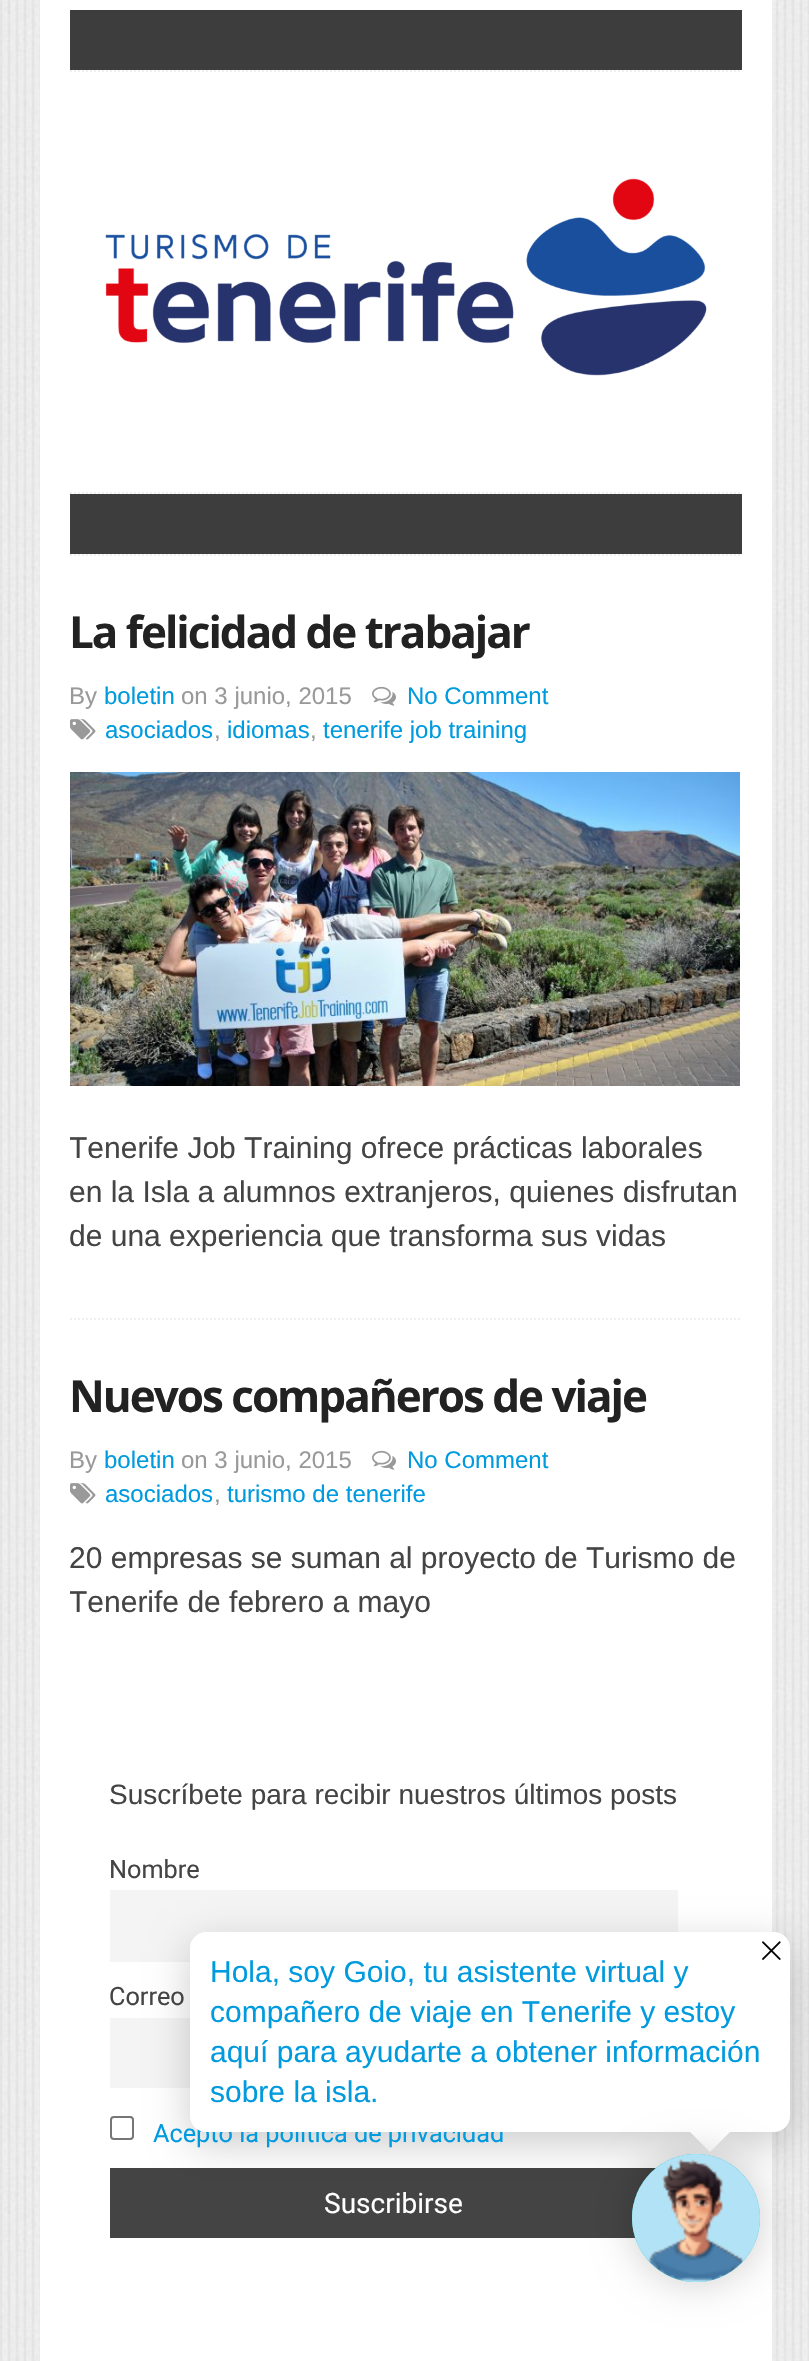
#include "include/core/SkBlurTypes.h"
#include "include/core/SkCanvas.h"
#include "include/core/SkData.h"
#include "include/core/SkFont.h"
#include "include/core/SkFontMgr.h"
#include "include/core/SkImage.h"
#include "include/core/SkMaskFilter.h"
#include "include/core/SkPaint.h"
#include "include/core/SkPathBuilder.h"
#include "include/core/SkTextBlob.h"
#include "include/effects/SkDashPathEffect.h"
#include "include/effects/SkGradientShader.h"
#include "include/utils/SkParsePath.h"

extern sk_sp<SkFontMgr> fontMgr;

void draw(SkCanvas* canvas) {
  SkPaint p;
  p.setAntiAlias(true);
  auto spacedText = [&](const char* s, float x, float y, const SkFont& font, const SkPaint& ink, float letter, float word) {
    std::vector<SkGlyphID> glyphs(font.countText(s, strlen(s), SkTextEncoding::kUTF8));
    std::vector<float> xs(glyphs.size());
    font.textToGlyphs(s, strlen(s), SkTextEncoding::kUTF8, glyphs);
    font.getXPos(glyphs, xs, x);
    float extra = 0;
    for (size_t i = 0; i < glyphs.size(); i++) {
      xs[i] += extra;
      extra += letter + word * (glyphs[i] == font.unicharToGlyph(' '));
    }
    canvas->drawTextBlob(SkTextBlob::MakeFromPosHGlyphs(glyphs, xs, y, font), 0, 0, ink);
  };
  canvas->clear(SK_ColorWHITE);
  canvas->drawImageRect(SkImages::DeferredFromEncodedData(SkData::MakeFromFileName("images/1.png")), SkRect::MakeLTRB(0, 0, 809, 2361), SkSamplingOptions());
  p.setColor(SK_ColorWHITE);
  canvas->drawRect(SkRect::MakeLTRB(40, 0, 772, 2361), p);
  p.setStyle(SkPaint::kStroke_Style);
  p.setStrokeWidth(2);
  p.setColor(SkColorSetRGB(239, 239, 239));
  p.setPathEffect(SkDashPathEffect::Make({{2, 2}}, 0));
  canvas->drawPath(SkPathBuilder().moveTo(70, 71).lineTo(742, 71).detach(), p);
  p.setPathEffect(nullptr);
  p.setStyle(SkPaint::kFill_Style);
  p.setColor(SkColorSetRGB(61, 61, 61));
  canvas->drawRect(SkRect::MakeLTRB(70, 10, 742, 70), p);
  canvas->drawImageRect(SkImages::DeferredFromEncodedData(SkData::MakeFromFileName("images/2.png")), SkRect::MakeLTRB(105, 178, 707, 376), SkSamplingOptions());
  p.setStyle(SkPaint::kStroke_Style);
  p.setColor(SkColorSetRGB(239, 239, 239));
  p.setPathEffect(SkDashPathEffect::Make({{2, 2}}, 0));
  canvas->drawPath(SkPathBuilder().moveTo(70, 493).lineTo(742, 493).detach(), p);
  p.setPathEffect(nullptr);
  p.setPathEffect(SkDashPathEffect::Make({{2, 2}}, 0));
  canvas->drawPath(SkPathBuilder().moveTo(70, 555).lineTo(742, 555).detach(), p);
  p.setPathEffect(nullptr);
  p.setStyle(SkPaint::kFill_Style);
  p.setColor(SkColorSetRGB(61, 61, 61));
  canvas->drawRect(SkRect::MakeLTRB(70, 494, 742, 554), p);
  p.setStyle(SkPaint::kStroke_Style);
  p.setColor(SkColorSetRGB(239, 239, 239));
  p.setPathEffect(SkDashPathEffect::Make({{2, 2}}, 0));
  canvas->drawPath(SkPathBuilder().moveTo(70, 1319).lineTo(742, 1319).detach(), p);
  p.setPathEffect(nullptr);
  canvas->drawImageRect(SkImages::DeferredFromEncodedData(SkData::MakeFromFileName("images/3.png")), SkRect::MakeLTRB(372, 686, 396, 706), SkSamplingOptions());
  canvas->drawImageRect(SkImages::DeferredFromEncodedData(SkData::MakeFromFileName("images/4.png")), SkRect::MakeLTRB(70, 719, 96, 740), SkSamplingOptions());
  canvas->drawImageRect(SkImages::DeferredFromEncodedData(SkData::MakeFromFileName("images/5.png")), SkRect::MakeLTRB(70, 772, 740, 1086), SkSamplingOptions());
  canvas->drawImageRect(SkImages::DeferredFromEncodedData(SkData::MakeFromFileName("images/3.png")), SkRect::MakeLTRB(372, 1450, 396, 1470), SkSamplingOptions());
  canvas->drawImageRect(SkImages::DeferredFromEncodedData(SkData::MakeFromFileName("images/4.png")), SkRect::MakeLTRB(70, 1483, 96, 1504), SkSamplingOptions());
  p.setStyle(SkPaint::kFill_Style);
  p.setColor(SkColorSetRGB(244, 244, 244));
  canvas->drawRect(SkRect::MakeLTRB(110, 1890, 678, 1962), p);
  canvas->drawRect(SkRect::MakeLTRB(110, 2018, 190, 2088), p);
  p.setStyle(SkPaint::kStroke_Style);
  p.setColor(SkColorSetRGB(118, 118, 118));
  canvas->drawRoundRect(SkRect::MakeLTRB(111, 2117, 133, 2139), 3, 3, p);
  p.setStyle(SkPaint::kFill_Style);
  p.setColor(SkColorSetRGB(68, 68, 68));
  canvas->drawRect(SkRect::MakeLTRB(110, 2168, 656, 2238), p);
  p.setColor(SkColorSetARGB(51, 0, 0, 0));
  p.setMaskFilter(SkMaskFilter::MakeBlur(kNormal_SkBlurStyle, 20));
  canvas->drawRoundRect(SkRect::MakeLTRB(190, 1944, 790, 2144), 16, 16, p);
  p.setMaskFilter(nullptr);
  p.setColor(SK_ColorWHITE);
  canvas->drawPath(SkPathBuilder().moveTo(690, 2132).lineTo(730, 2132).lineTo(710, 2152).close().detach(), p);
  SkFont font1(fontMgr->matchFamilyStyle("Open Sans", SkFontStyle::Bold()), 44);
  font1.setSubpixel(true);
  p.setColor(SkColorSetRGB(34, 34, 34));
  spacedText("La felicidad de trabajar", 69, 648, font1, p, -2, 0);
  SkFont font2(fontMgr->matchFamilyStyle("Liberation Sans", SkFontStyle::Normal()), 24);
  font2.setSubpixel(true);
  p.setColor(SkColorSetRGB(153, 153, 153));
  canvas->drawString("By", 69, 704, font2, p);
  p.setColor(SkColorSetRGB(0, 154, 222));
  canvas->drawString("boletin", 104, 704, font2, p);
  p.setColor(SkColorSetRGB(153, 153, 153));
  canvas->drawString("on 3 junio, 2015", 181, 704, font2, p);
  p.setColor(SkColorSetRGB(0, 154, 222));
  canvas->drawString("No Comment", 407, 704, font2, p);
  canvas->drawString("asociados", 105, 738, font2, p);
  p.setColor(SkColorSetRGB(153, 153, 153));
  canvas->drawString(",", 214, 738, font2, p);
  p.setColor(SkColorSetRGB(0, 154, 222));
  canvas->drawString("idiomas", 227, 738, font2, p);
  p.setColor(SkColorSetRGB(153, 153, 153));
  canvas->drawString(",", 310, 738, font2, p);
  p.setColor(SkColorSetRGB(0, 154, 222));
  canvas->drawString("tenerife job training", 323, 738, font2, p);
  canvas->save();
  canvas->clipRect(SkRect::MakeLTRB(70, 606, 742, 1318));
  SkFont font3(fontMgr->matchFamilyStyle("Liberation Sans", SkFontStyle::Normal()), 30);
  font3.setSubpixel(true);
  p.setColor(SkColorSetRGB(68, 68, 68));
  canvas->drawString("Tenerife Job Training ofrece prácticas laborales", 69, 1158, font3, p);
  canvas->restore();
  canvas->drawString("en la Isla a alumnos extranjeros, quienes disfrutan", 69, 1202, font3, p);
  canvas->drawString("de una experiencia que transforma sus vidas", 69, 1246, font3, p);
  p.setColor(SkColorSetRGB(34, 34, 34));
  spacedText("Nuevos compañeros de viaje", 69, 1412, font1, p, -2, 0);
  p.setColor(SkColorSetRGB(153, 153, 153));
  canvas->drawString("By", 69, 1468, font2, p);
  p.setColor(SkColorSetRGB(0, 154, 222));
  canvas->drawString("boletin", 104, 1468, font2, p);
  p.setColor(SkColorSetRGB(153, 153, 153));
  canvas->drawString("on 3 junio, 2015", 181, 1468, font2, p);
  p.setColor(SkColorSetRGB(0, 154, 222));
  canvas->drawString("No Comment", 407, 1468, font2, p);
  canvas->drawString("asociados", 105, 1502, font2, p);
  p.setColor(SkColorSetRGB(153, 153, 153));
  canvas->drawString(",", 214, 1502, font2, p);
  p.setColor(SkColorSetRGB(0, 154, 222));
  canvas->drawString("turismo de tenerife", 227, 1502, font2, p);
  p.setColor(SkColorSetRGB(68, 68, 68));
  canvas->drawString("20 empresas se suman al proyecto de Turismo de", 69, 1568, font3, p);
  canvas->save();
  canvas->clipRect(SkRect::MakeLTRB(70, 1370, 742, 1684));
  canvas->drawString("Tenerife de febrero a mayo", 69, 1612, font3, p);
  canvas->restore();
  SkFont font4(fontMgr->matchFamilyStyle("Liberation Sans", SkFontStyle::Normal()), 28);
  font4.setSubpixel(true);
  canvas->drawString("Suscríbete para recibir nuestros últimos posts", 109, 1804, font4, p);
  SkFont font5(fontMgr->matchFamilyStyle("Roboto", SkFontStyle::Normal()), 25.25f);
  font5.setSubpixel(true);
  canvas->drawString("Nombre", 109, 1878, font5, p);
  canvas->drawString("Correo", 109, 2005, font5, p);
  p.setColor(SkColorSetRGB(0, 154, 222));
  canvas->drawString("Acepto la política de privacidad", 153, 2142, font5, p);
  SkFont font6(fontMgr->matchFamilyStyle("Roboto", SkFontStyle::Normal()), 28);
  font6.setSubpixel(true);
  p.setColor(SK_ColorWHITE);
  canvas->drawString("Suscribirse", 324, 2213, font6, p);
  canvas->drawRoundRect(SkRect::MakeLTRB(190, 1932, 790, 2132), 16, 16, p);
  canvas->drawImageRect(SkImages::DeferredFromEncodedData(SkData::MakeFromFileName("images/6.png")), SkRect::MakeLTRB(762, 1941, 781, 1960), SkSamplingOptions());
  p.setColor(SkColorSetRGB(0, 154, 222));
  canvas->drawString("Hola, soy Goio, tu asistente virtual y", 210, 1982, font3, p);
  canvas->drawString("compañero de viaje en Tenerife y estoy", 210, 2022, font3, p);
  canvas->drawString("aquí para ayudarte a obtener información", 210, 2062, font3, p);
  canvas->drawString("sobre la isla.", 210, 2102, font3, p);
  p.setColor(SkColorSetARGB(51, 0, 0, 0));
  p.setMaskFilter(SkMaskFilter::MakeBlur(kNormal_SkBlurStyle, 20));
  canvas->drawRoundRect(SkRect::MakeLTRB(632, 2154, 760, 2282), 64, 64, p);
  p.setMaskFilter(nullptr);
  p.setColor(SkColorSetRGB(44, 204, 211));
  canvas->drawCircle(696, 2218, 64, p);
  canvas->drawImageRect(SkImages::DeferredFromEncodedData(SkData::MakeFromFileName("images/7.png")), SkRect::MakeLTRB(632, 2154, 760, 2282), SkSamplingOptions());
}
